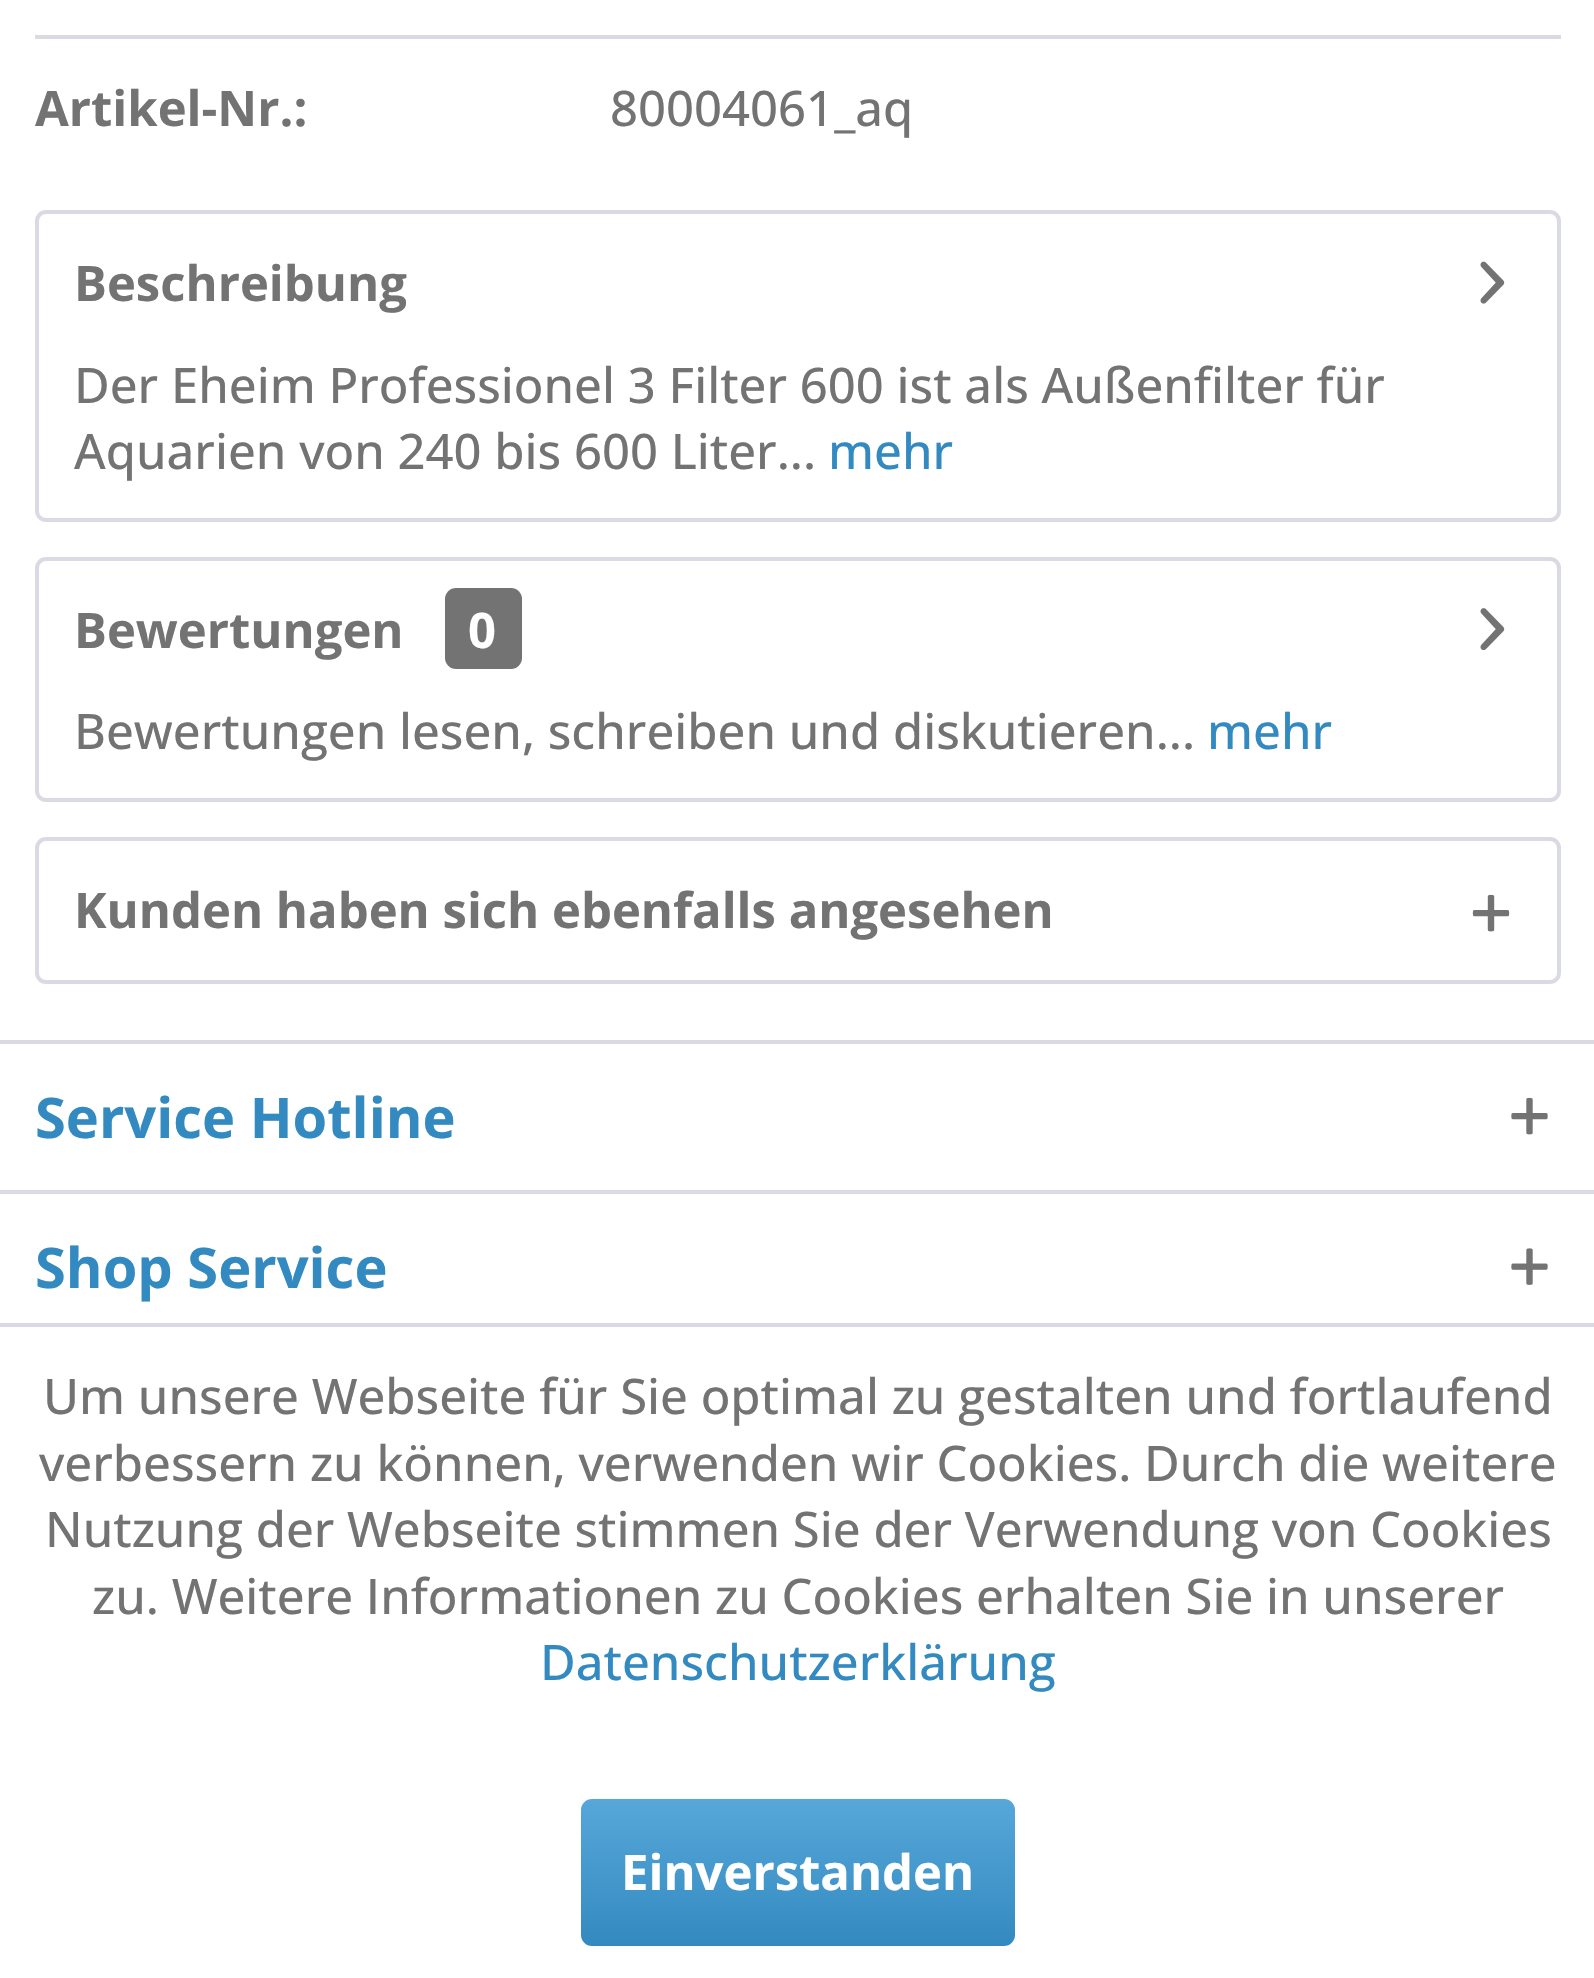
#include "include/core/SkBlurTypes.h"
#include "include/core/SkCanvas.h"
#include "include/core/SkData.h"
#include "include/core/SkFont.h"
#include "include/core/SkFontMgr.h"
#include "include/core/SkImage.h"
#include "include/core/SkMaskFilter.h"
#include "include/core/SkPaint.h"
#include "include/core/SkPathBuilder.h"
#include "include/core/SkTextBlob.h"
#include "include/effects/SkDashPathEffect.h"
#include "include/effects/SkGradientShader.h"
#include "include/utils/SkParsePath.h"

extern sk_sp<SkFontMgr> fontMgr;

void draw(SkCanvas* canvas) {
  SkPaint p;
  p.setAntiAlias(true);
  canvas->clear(SK_ColorWHITE);
  p.setColor(SkColorSetRGB(218, 218, 229));
  canvas->drawRect(SkRect::MakeLTRB(35, 35, 1561, 39), p);
  p.setStyle(SkPaint::kStroke_Style);
  p.setStrokeWidth(4);
  canvas->drawRoundRect(SkRect::MakeLTRB(37, 212, 1559, 520), 9, 9, p);
  canvas->drawImageRect(SkImages::DeferredFromEncodedData(SkData::MakeFromFileName("images/1.png")), SkRect::MakeLTRB(1480, 261, 1505, 304), SkSamplingOptions());
  canvas->drawRoundRect(SkRect::MakeLTRB(37, 559, 1559, 800), 9, 9, p);
  canvas->drawImageRect(SkImages::DeferredFromEncodedData(SkData::MakeFromFileName("images/2.png")), SkRect::MakeLTRB(1480, 608, 1505, 651), SkSamplingOptions());
  p.setStyle(SkPaint::kFill_Style);
  p.setColor(SkColorSetRGB(116, 115, 116));
  canvas->drawRoundRect(SkRect::MakeLTRB(445, 588, 522, 669), 11, 11, p);
  p.setStyle(SkPaint::kStroke_Style);
  p.setColor(SkColorSetRGB(218, 218, 229));
  canvas->drawRoundRect(SkRect::MakeLTRB(37, 839, 1559, 982), 9, 9, p);
  canvas->drawImageRect(SkImages::DeferredFromEncodedData(SkData::MakeFromFileName("images/3.png")), SkRect::MakeLTRB(1472, 894, 1510, 932), SkSamplingOptions());
  p.setStyle(SkPaint::kFill_Style);
  canvas->drawRect(SkRect::MakeLTRB(0, 1040, 1594, 1044), p);
  canvas->drawImageRect(SkImages::DeferredFromEncodedData(SkData::MakeFromFileName("images/4.png")), SkRect::MakeLTRB(1511, 1097, 1548, 1135), SkSamplingOptions());
  canvas->drawRect(SkRect::MakeLTRB(0, 1190, 1594, 1194), p);
  canvas->drawImageRect(SkImages::DeferredFromEncodedData(SkData::MakeFromFileName("images/5.png")), SkRect::MakeLTRB(1511, 1248, 1548, 1285), SkSamplingOptions());
  canvas->drawRect(SkRect::MakeLTRB(0, 1323, 1594, 1327), p);
  {
    const SkColor colors[] = {SkColorSetRGB(87, 167, 217), SkColorSetRGB(51, 138, 192)};
    const float stops[] = {0, 1};
    const SkPoint ends[] = {{798, 1799}, {798, 1946}};
    p.setShader(SkGradientShader::MakeLinear(ends, colors, stops, 2, SkTileMode::kClamp));
    p.setAlpha(255);
  }
  canvas->drawRoundRect(SkRect::MakeLTRB(581, 1799, 1015, 1946), 11, 11, p);
  SkFont font1(fontMgr->matchFamilyStyle("Open Sans", SkFontStyle::Bold()), 49);
  font1.setSubpixel(true);
  p.setShader(nullptr);
  p.setColor(SkColorSetRGB(116, 115, 116));
  canvas->drawString("Artikel-Nr.:", 35, 126, font1, p);
  SkFont font2(fontMgr->matchFamilyStyle("Open Sans", SkFontStyle(500, SkFontStyle::kNormal_Width, SkFontStyle::kUpright_Slant)), 49);
  font2.setSubpixel(true);
  canvas->drawString("80004061_aq", 610, 126, font2, p);
  canvas->drawString("Beschreibung", 74, 301, font1, p);
  canvas->drawString("Der Eheim Professionel 3 Filter 600 ist als Außenfilter für", 74, 403, font2, p);
  canvas->drawString("Aquarien von 240 bis 600 Liter...", 74, 469, font2, p);
  p.setColor(SkColorSetRGB(51, 138, 192));
  canvas->drawString("mehr", 828, 469, font2, p);
  p.setColor(SkColorSetRGB(116, 115, 116));
  canvas->drawString("Bewertungen", 74, 648, font1, p);
  p.setColor(SK_ColorWHITE);
  canvas->drawString("0", 468, 648, font1, p);
  p.setColor(SkColorSetRGB(116, 115, 116));
  canvas->drawString("Bewertungen lesen, schreiben und diskutieren...", 74, 749, font2, p);
  p.setColor(SkColorSetRGB(51, 138, 192));
  canvas->drawString("mehr", 1207, 749, font2, p);
  p.setColor(SkColorSetRGB(116, 115, 116));
  canvas->drawString("Kunden haben sich ebenfalls angesehen", 74, 928, font1, p);
  SkFont font3(fontMgr->matchFamilyStyle("Open Sans", SkFontStyle::Bold()), 56);
  font3.setSubpixel(true);
  p.setColor(SkColorSetRGB(51, 138, 192));
  canvas->drawString("Service Hotline", 35, 1138, font3, p);
  canvas->drawString("Shop Service", 35, 1288, font3, p);
  p.setColor(SkColorSetRGB(116, 115, 116));
  canvas->drawString("Um unsere Webseite für Sie optimal zu gestalten und fortlaufend", 43, 1414, font2, p);
  canvas->drawString("verbessern zu können, verwenden wir Cookies. Durch die weitere", 39, 1481, font2, p);
  canvas->drawString("Nutzung der Webseite stimmen Sie der Verwendung von Cookies", 45, 1547, font2, p);
  canvas->drawString("zu. Weitere Informationen zu Cookies erhalten Sie in unserer", 92, 1614, font2, p);
  p.setColor(SkColorSetRGB(51, 138, 192));
  canvas->drawString("Datenschutzerklärung", 540, 1680, font2, p);
  p.setColor(SK_ColorWHITE);
  canvas->drawString("Einverstanden", 621, 1890, font1, p);
}
